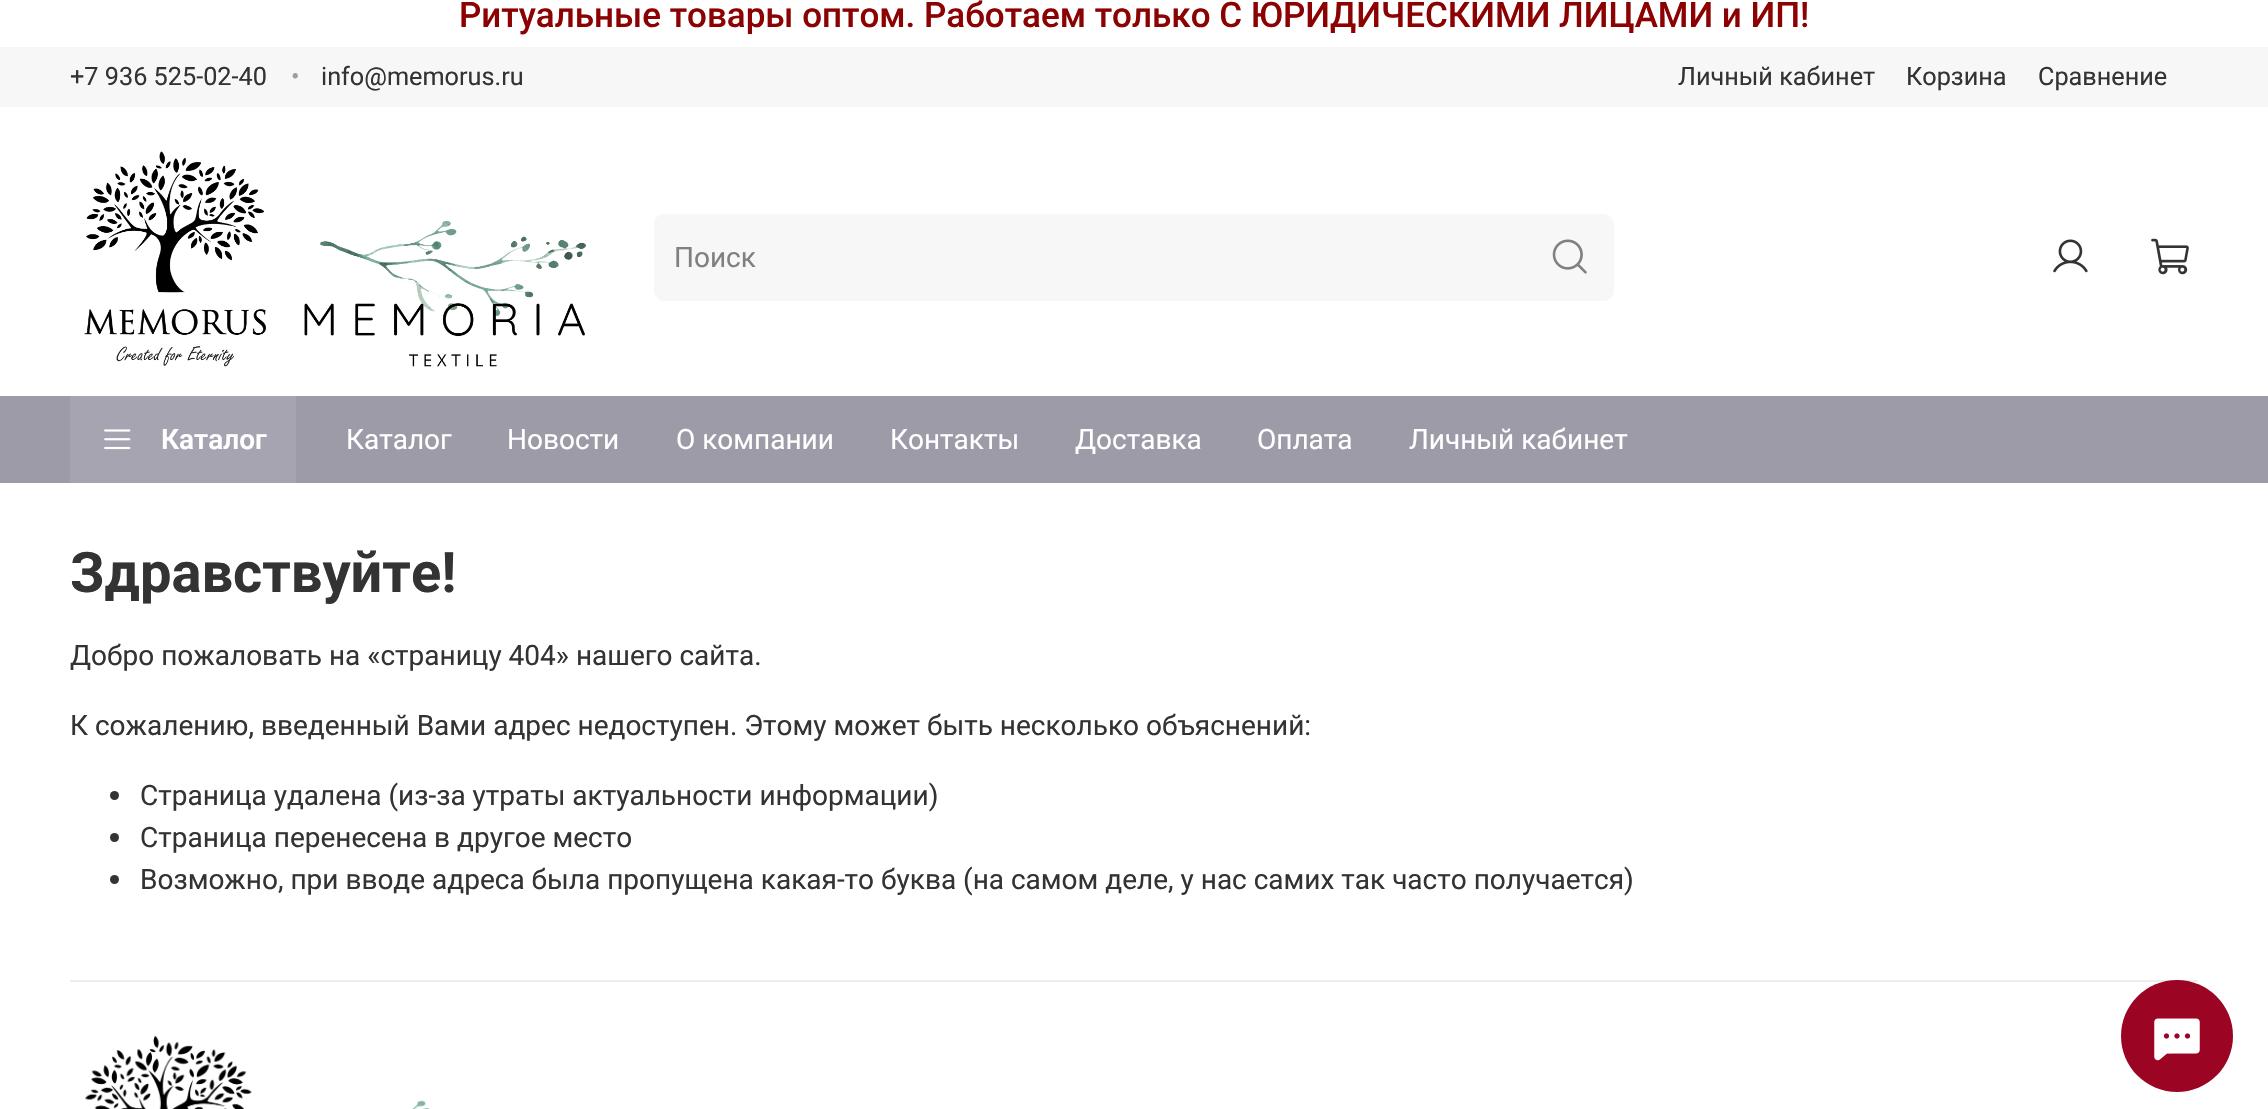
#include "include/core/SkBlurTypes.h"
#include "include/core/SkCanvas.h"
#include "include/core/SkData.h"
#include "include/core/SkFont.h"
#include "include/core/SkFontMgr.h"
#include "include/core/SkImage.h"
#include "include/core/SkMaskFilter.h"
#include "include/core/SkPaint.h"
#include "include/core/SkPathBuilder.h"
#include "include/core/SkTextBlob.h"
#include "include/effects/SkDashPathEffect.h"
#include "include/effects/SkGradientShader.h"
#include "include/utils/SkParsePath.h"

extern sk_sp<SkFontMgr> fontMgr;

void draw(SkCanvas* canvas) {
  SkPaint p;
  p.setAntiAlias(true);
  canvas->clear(SK_ColorWHITE);
  p.setColor(SkColorSetRGB(247, 247, 247));
  canvas->drawRect(SkRect::MakeLTRB(0, 47, 2268, 107), p);
  canvas->drawImageRect(SkImages::DeferredFromEncodedData(SkData::MakeFromFileName("images/1.png")), SkRect::MakeLTRB(84, 151, 586, 367), SkSamplingOptions());
  canvas->drawPath(SkPathBuilder().moveTo(666, 214).lineTo(1526, 214).lineTo(1526, 301).lineTo(666, 301).cubicTo(660, 301, 655, 296, 655, 290).lineTo(655, 225).cubicTo(655, 219, 660, 214, 666, 214).close().detach(), p);
  canvas->drawPath(SkPathBuilder(SkPathFillType::kEvenOdd).moveTo(665, 214).lineTo(1526, 214).lineTo(1526, 301).lineTo(665, 301).cubicTo(659, 301, 654, 296, 654, 290).lineTo(654, 224).cubicTo(654, 218, 659, 214, 665, 214).close().moveTo(665, 215).lineTo(1526, 215).lineTo(1526, 299).lineTo(665, 299).cubicTo(660, 299, 656, 295, 656, 290).lineTo(656, 224).cubicTo(656, 219, 660, 215, 665, 215).close().detach(), p);
  canvas->drawPath(SkPathBuilder().moveTo(1526, 214).lineTo(1603, 214).cubicTo(1609, 214, 1614, 219, 1614, 225).lineTo(1614, 290).cubicTo(1614, 296, 1609, 301, 1603, 301).lineTo(1526, 301).close().detach(), p);
  canvas->drawImageRect(SkImages::DeferredFromEncodedData(SkData::MakeFromFileName("images/2.png")), SkRect::MakeLTRB(1552, 239, 1587, 274), SkSamplingOptions());
  canvas->drawImageRect(SkImages::DeferredFromEncodedData(SkData::MakeFromFileName("images/3.png")), SkRect::MakeLTRB(2053, 239, 2088, 273), SkSamplingOptions());
  canvas->drawImageRect(SkImages::DeferredFromEncodedData(SkData::MakeFromFileName("images/4.png")), SkRect::MakeLTRB(2151, 238, 2189, 275), SkSamplingOptions());
  p.setColor(SkColorSetRGB(157, 155, 168));
  canvas->drawRect(SkRect::MakeLTRB(0, 396, 2268, 483), p);
  p.setColor(SkColorSetRGB(166, 164, 176));
  canvas->drawRect(SkRect::MakeLTRB(70, 396, 296, 483), p);
  canvas->drawImageRect(SkImages::DeferredFromEncodedData(SkData::MakeFromFileName("images/5.png")), SkRect::MakeLTRB(104, 429, 131, 450), SkSamplingOptions());
  p.setColor(SkColorSetRGB(51, 51, 51));
  canvas->drawCircle(114.5f, 795.5f, 4.5f, p);
  canvas->drawCircle(114.5f, 837.5f, 4.5f, p);
  canvas->drawCircle(114.5f, 879.5f, 4.5f, p);
  p.setColor(SkColorSetRGB(237, 237, 237));
  canvas->drawRect(SkRect::MakeLTRB(70, 980, 2198, 982), p);
  canvas->drawImageRect(SkImages::DeferredFromEncodedData(SkData::MakeFromFileName("images/6.png")), SkRect::MakeLTRB(85, 1035, 430, 1109), SkSamplingOptions());
  p.setColor(SkColorSetRGB(156, 4, 35));
  canvas->drawCircle(2177, 1036, 56, p);
  canvas->drawImageRect(SkImages::DeferredFromEncodedData(SkData::MakeFromFileName("images/7.png")), SkRect::MakeLTRB(2154, 1018, 2200, 1061), SkSamplingOptions());
  SkFont font1(fontMgr->matchFamilyStyle("Roboto", SkFontStyle(500, SkFontStyle::kNormal_Width, SkFontStyle::kUpright_Slant)), 35);
  font1.setSubpixel(true);
  p.setColor(SkColorSetRGB(140, 1, 1));
  canvas->drawString("Ритуальные товары оптом. Работаем только С ЮРИДИЧЕСКИМИ ЛИЦАМИ и ИП!", 459, 27, font1, p);
  SkFont font2(fontMgr->matchFamilyStyle("Roboto", SkFontStyle::Normal()), 25.25f);
  font2.setSubpixel(true);
  p.setColor(SkColorSetRGB(51, 51, 51));
  canvas->drawString("+7 936 525-02-40", 70, 85, font2, p);
  p.setColor(SkColorSetRGB(157, 155, 168));
  canvas->drawString("•", 291, 85, font2, p);
  p.setColor(SkColorSetRGB(51, 51, 51));
  canvas->drawString("info@memorus.ru", 321, 85, font2, p);
  canvas->drawString("Личный кабинет", 1678, 85, font2, p);
  canvas->drawString("Корзина", 1906, 85, font2, p);
  canvas->drawString("Сравнение", 2038, 85, font2, p);
  SkFont font3(fontMgr->matchFamilyStyle("Roboto", SkFontStyle::Normal()), 28);
  font3.setSubpixel(true);
  p.setColor(SkColorSetRGB(128, 128, 128));
  canvas->drawString("Поиск", 674, 267, font3, p);
  SkFont font4(fontMgr->matchFamilyStyle("Roboto", SkFontStyle(600, SkFontStyle::kNormal_Width, SkFontStyle::kUpright_Slant)), 28);
  font4.setSubpixel(true);
  p.setColor(SK_ColorWHITE);
  canvas->drawString("Каталог", 161, 449, font4, p);
  canvas->drawString("Каталог", 346, 449, font3, p);
  canvas->drawString("Новости", 507, 449, font3, p);
  canvas->drawString("О компании", 676, 449, font3, p);
  canvas->drawString("Контакты", 890, 449, font3, p);
  canvas->drawString("Доставка", 1075, 449, font3, p);
  canvas->drawString("Оплата", 1257, 449, font3, p);
  canvas->drawString("Личный кабинет", 1409, 449, font3, p);
  SkFont font5(fontMgr->matchFamilyStyle("Roboto", SkFontStyle::Bold()), 56);
  font5.setSubpixel(true);
  p.setColor(SkColorSetRGB(51, 51, 51));
  canvas->drawString("Здравствуйте!", 70, 592, font5, p);
  canvas->drawString("Добро пожаловать на «страницу 404» нашего сайта.", 70, 665, font3, p);
  canvas->drawString("К сожалению, введенный Вами адрес недоступен. Этому может быть несколько объяснений:", 70, 735, font3, p);
  canvas->drawString("Страница удалена (из-за утраты актуальности информации)", 140, 805, font3, p);
  canvas->drawString("Страница перенесена в другое место", 140, 847, font3, p);
  canvas->drawString("Возможно, при вводе адреса была пропущена какая-то буква (на самом деле, у нас самих так часто получается)", 140, 889, font3, p);
}
